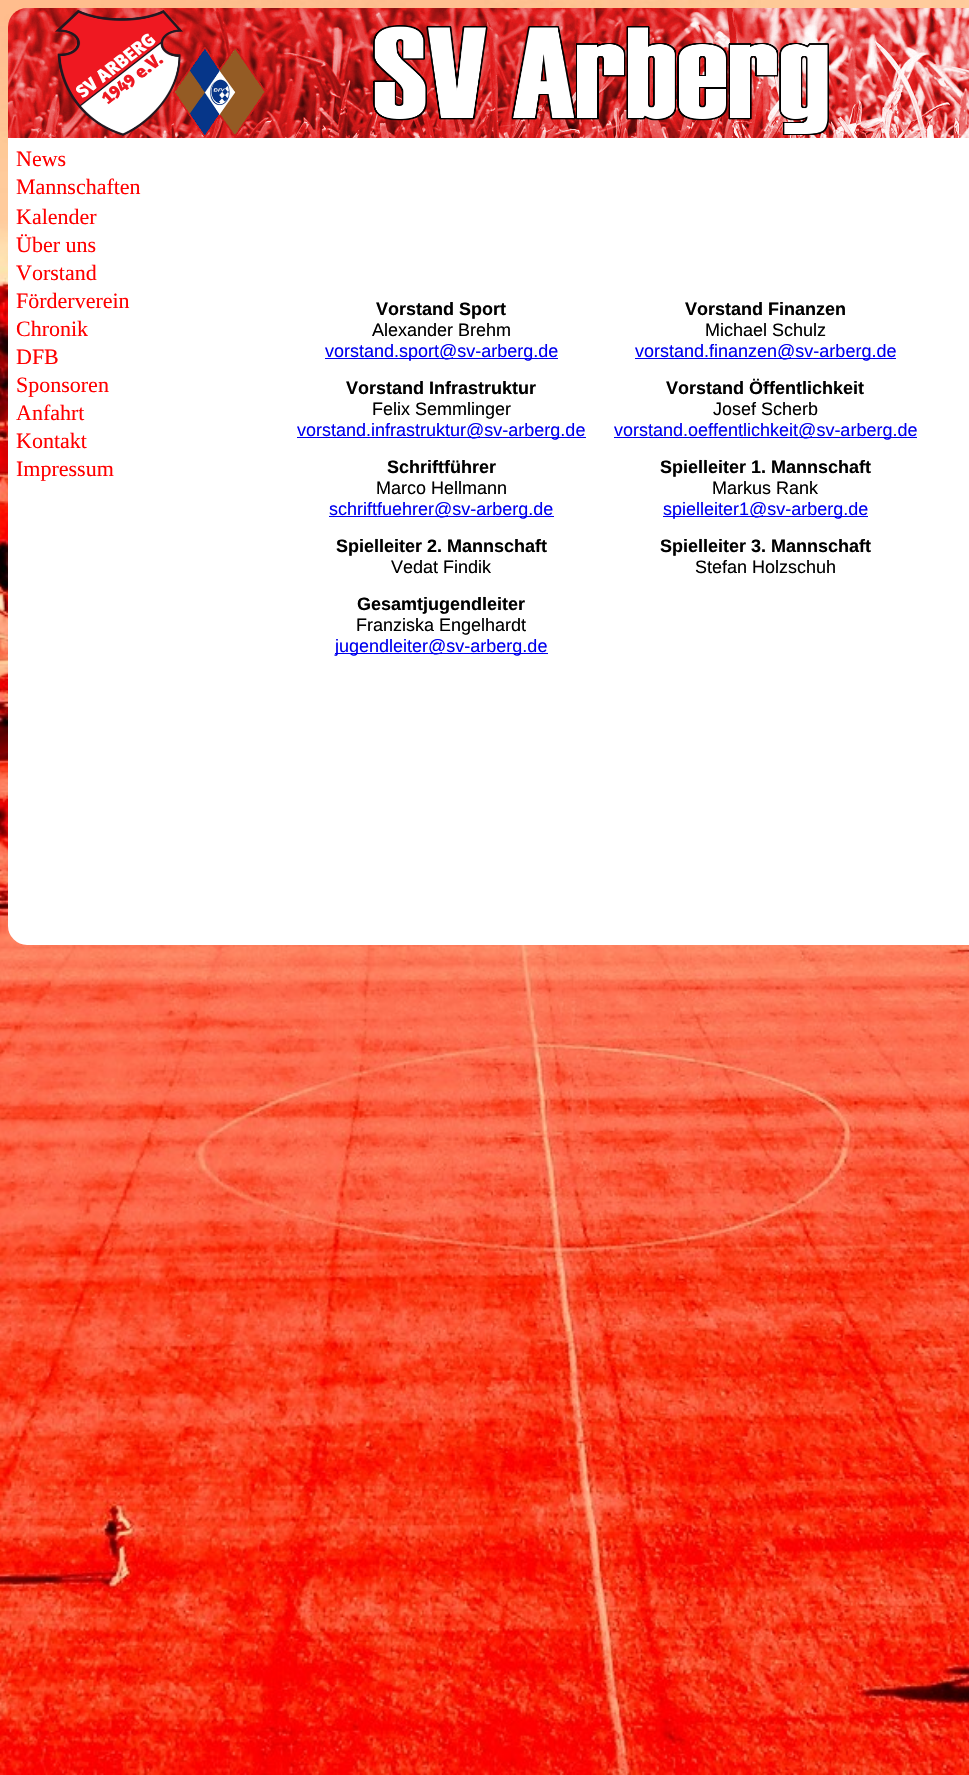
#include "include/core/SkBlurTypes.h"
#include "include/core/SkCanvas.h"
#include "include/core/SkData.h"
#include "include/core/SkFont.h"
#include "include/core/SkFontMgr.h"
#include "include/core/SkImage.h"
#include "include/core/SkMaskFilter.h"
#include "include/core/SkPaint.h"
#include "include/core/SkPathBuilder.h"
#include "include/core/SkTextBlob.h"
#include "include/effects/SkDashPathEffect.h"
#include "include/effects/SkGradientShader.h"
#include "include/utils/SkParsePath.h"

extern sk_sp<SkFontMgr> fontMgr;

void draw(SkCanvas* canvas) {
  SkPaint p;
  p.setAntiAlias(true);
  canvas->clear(SK_ColorWHITE);
  canvas->drawImageRect(SkImages::DeferredFromEncodedData(SkData::MakeFromFileName("images/1.png")), SkRect::MakeLTRB(0, 0, 969, 1775), SkSamplingOptions());
  canvas->drawImageRect(SkImages::DeferredFromEncodedData(SkData::MakeFromFileName("images/2.png")), SkRect::MakeLTRB(8, 8, 969, 138), SkSamplingOptions());
  p.setColor(SK_ColorWHITE);
  canvas->drawPath(SkPathBuilder().moveTo(9.5f, 139.5f).lineTo(197.5f, 139.5f).lineTo(197.5f, 943.5f).lineTo(27, 943.5f).cubicTo(17.5f, 943.5f, 9.5f, 935.5f, 9.5f, 926).close().detach(), p);
  p.setStyle(SkPaint::kStroke_Style);
  p.setStrokeWidth(3);
  canvas->drawPath(SkPathBuilder().moveTo(9.5f, 139.5f).lineTo(197.5f, 139.5f).lineTo(197.5f, 943.5f).lineTo(27, 943.5f).cubicTo(17.5f, 943.5f, 9.5f, 935.5f, 9.5f, 926).close().detach(), p);
  p.setStyle(SkPaint::kFill_Style);
  canvas->drawRect(SkRect::MakeLTRB(199, 138, 969, 945), p);
  p.setColor(SkColorSetRGB(0, 0, 238));
  canvas->drawRect(SkRect::MakeLTRB(325, 358, 558, 359), p);
  canvas->drawRect(SkRect::MakeLTRB(635, 358, 896, 359), p);
  canvas->drawRect(SkRect::MakeLTRB(297, 437, 586, 438), p);
  canvas->drawRect(SkRect::MakeLTRB(614, 437, 917, 438), p);
  canvas->drawRect(SkRect::MakeLTRB(329, 516, 554, 517), p);
  canvas->drawRect(SkRect::MakeLTRB(663, 516, 868, 517), p);
  canvas->drawRect(SkRect::MakeLTRB(335, 653, 548, 654), p);
  SkFont font1(fontMgr->matchFamilyStyle("Liberation Serif", SkFontStyle::Normal()), 22);
  font1.setSubpixel(true);
  p.setColor(SkColorSetRGB(255, 0, 0));
  canvas->drawString("News", 16, 166, font1, p);
  canvas->drawString("Mannschaften", 16, 194, font1, p);
  canvas->drawString("Kalender", 16, 224, font1, p);
  canvas->drawString("Über uns", 16, 252, font1, p);
  canvas->drawString("Vorstand", 16, 280, font1, p);
  canvas->drawString("Förderverein", 16, 308, font1, p);
  canvas->drawString("Chronik", 16, 336, font1, p);
  canvas->drawString("DFB", 16, 364, font1, p);
  canvas->drawString("Sponsoren", 16, 392, font1, p);
  canvas->drawString("Anfahrt", 16, 420, font1, p);
  canvas->drawString("Kontakt", 16, 448, font1, p);
  canvas->drawString("Impressum", 16, 476, font1, p);
  SkFont font2(fontMgr->matchFamilyStyle("Liberation Sans", SkFontStyle::Bold()), 18);
  font2.setSubpixel(true);
  p.setColor(SK_ColorBLACK);
  canvas->drawString("Vorstand Sport", 376, 315, font2, p);
  SkFont font3(fontMgr->matchFamilyStyle("Liberation Sans", SkFontStyle::Normal()), 18);
  font3.setSubpixel(true);
  canvas->drawString("Alexander Brehm", 372, 336, font3, p);
  p.setColor(SkColorSetRGB(0, 0, 238));
  canvas->drawString("vorstand.sport@sv-arberg.de", 325, 357, font3, p);
  p.setColor(SK_ColorBLACK);
  canvas->drawString("Vorstand Finanzen", 685, 315, font2, p);
  canvas->drawString("Michael Schulz", 705, 336, font3, p);
  p.setColor(SkColorSetRGB(0, 0, 238));
  canvas->drawString("vorstand.finanzen@sv-arberg.de", 635, 357, font3, p);
  p.setColor(SK_ColorBLACK);
  canvas->drawString("Vorstand Infrastruktur", 346, 394, font2, p);
  canvas->drawString("Felix Semmlinger", 372, 415, font3, p);
  p.setColor(SkColorSetRGB(0, 0, 238));
  canvas->drawString("vorstand.infrastruktur@sv-arberg.de", 297, 436, font3, p);
  p.setColor(SK_ColorBLACK);
  canvas->drawString("Vorstand Öffentlichkeit", 666, 394, font2, p);
  canvas->drawString("Josef Scherb", 713, 415, font3, p);
  p.setColor(SkColorSetRGB(0, 0, 238));
  canvas->drawString("vorstand.oeffentlichkeit@sv-arberg.de", 614, 436, font3, p);
  p.setColor(SK_ColorBLACK);
  canvas->drawString("Schriftführer", 387, 473, font2, p);
  canvas->drawString("Marco Hellmann", 376, 494, font3, p);
  p.setColor(SkColorSetRGB(0, 0, 238));
  canvas->drawString("schriftfuehrer@sv-arberg.de", 329, 515, font3, p);
  p.setColor(SK_ColorBLACK);
  canvas->drawString("Spielleiter 1. Mannschaft", 660, 473, font2, p);
  canvas->drawString("Markus Rank", 712, 494, font3, p);
  p.setColor(SkColorSetRGB(0, 0, 238));
  canvas->drawString("spielleiter1@sv-arberg.de", 663, 515, font3, p);
  p.setColor(SK_ColorBLACK);
  canvas->drawString("Spielleiter 2. Mannschaft", 336, 552, font2, p);
  canvas->drawString("Vedat Findik", 391, 573, font3, p);
  canvas->drawString("Spielleiter 3. Mannschaft", 660, 552, font2, p);
  canvas->drawString("Stefan Holzschuh", 695, 573, font3, p);
  canvas->drawString("Gesamtjugendleiter", 357, 610, font2, p);
  canvas->drawString("Franziska Engelhardt", 356, 631, font3, p);
  p.setColor(SkColorSetRGB(0, 0, 238));
  canvas->drawString("jugendleiter@sv-arberg.de", 335, 652, font3, p);
}
